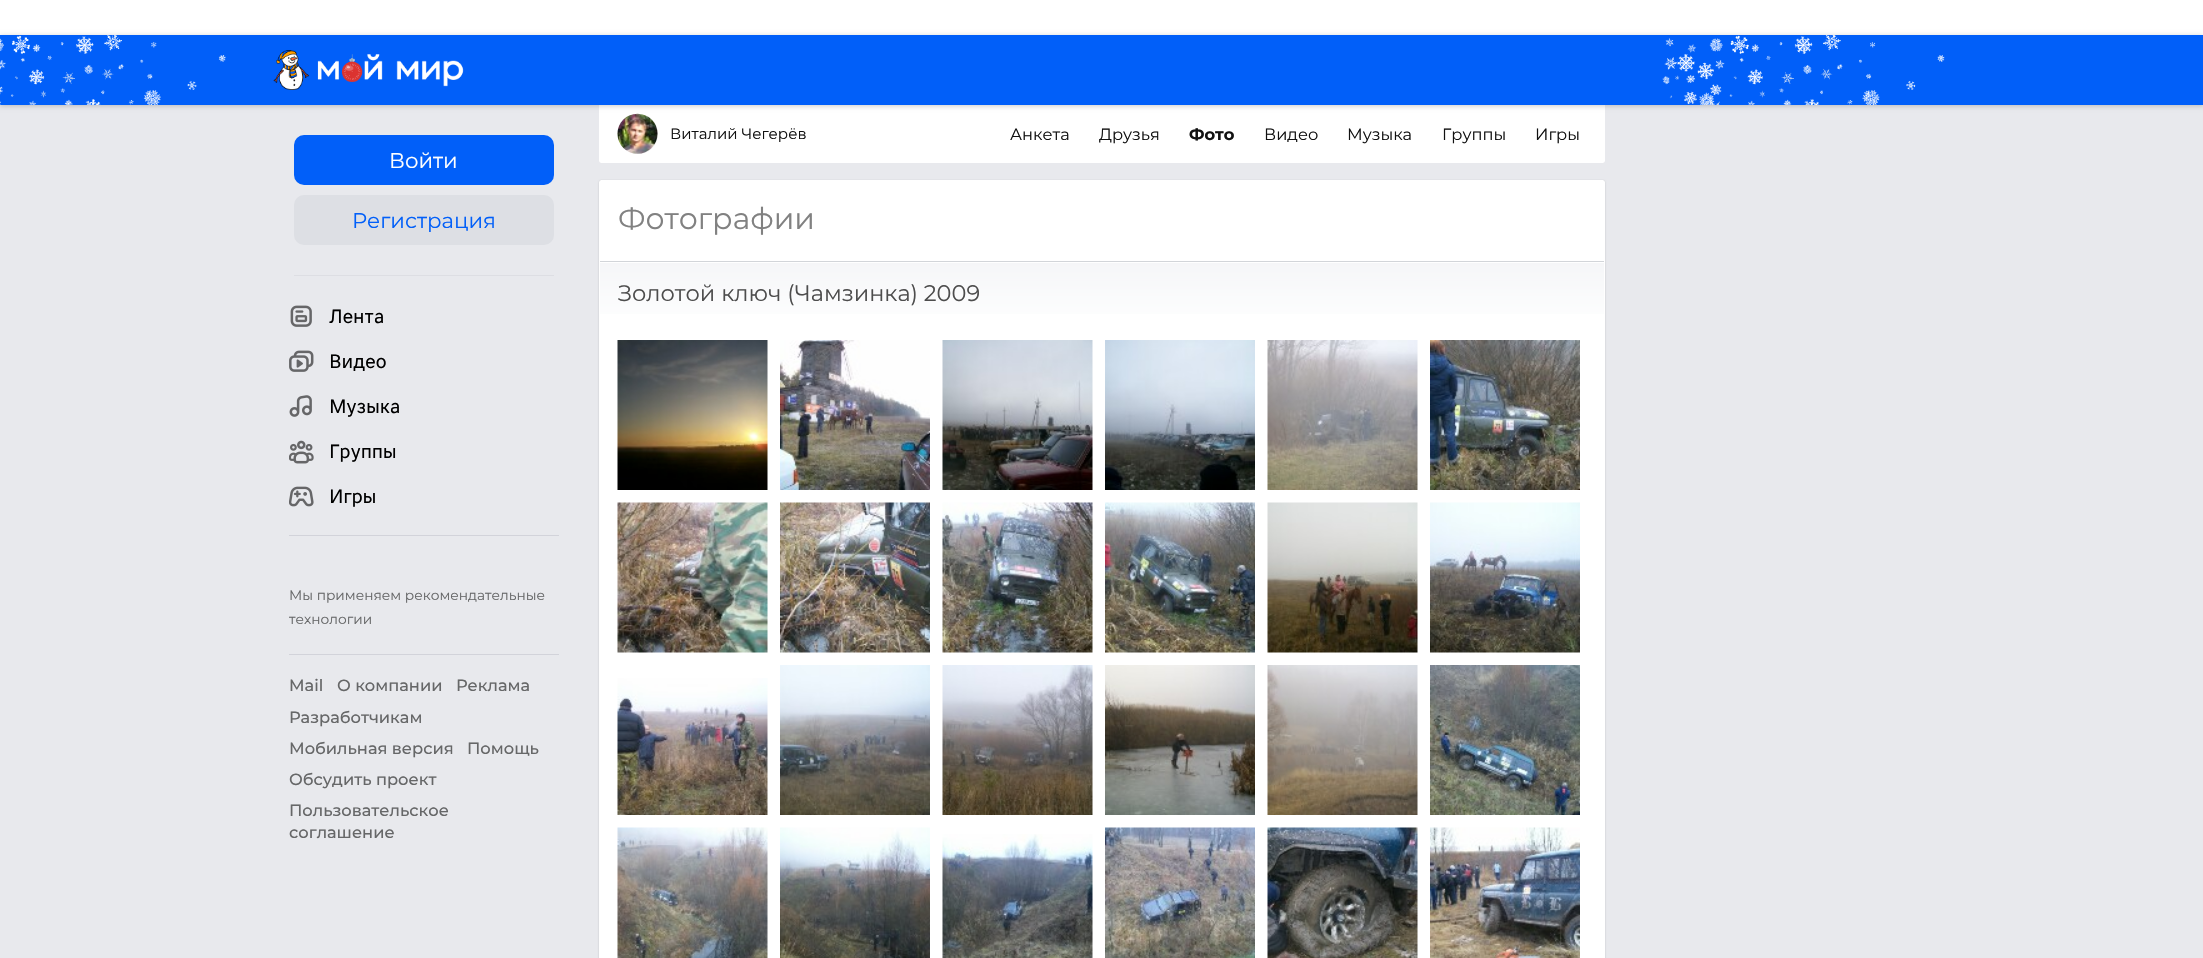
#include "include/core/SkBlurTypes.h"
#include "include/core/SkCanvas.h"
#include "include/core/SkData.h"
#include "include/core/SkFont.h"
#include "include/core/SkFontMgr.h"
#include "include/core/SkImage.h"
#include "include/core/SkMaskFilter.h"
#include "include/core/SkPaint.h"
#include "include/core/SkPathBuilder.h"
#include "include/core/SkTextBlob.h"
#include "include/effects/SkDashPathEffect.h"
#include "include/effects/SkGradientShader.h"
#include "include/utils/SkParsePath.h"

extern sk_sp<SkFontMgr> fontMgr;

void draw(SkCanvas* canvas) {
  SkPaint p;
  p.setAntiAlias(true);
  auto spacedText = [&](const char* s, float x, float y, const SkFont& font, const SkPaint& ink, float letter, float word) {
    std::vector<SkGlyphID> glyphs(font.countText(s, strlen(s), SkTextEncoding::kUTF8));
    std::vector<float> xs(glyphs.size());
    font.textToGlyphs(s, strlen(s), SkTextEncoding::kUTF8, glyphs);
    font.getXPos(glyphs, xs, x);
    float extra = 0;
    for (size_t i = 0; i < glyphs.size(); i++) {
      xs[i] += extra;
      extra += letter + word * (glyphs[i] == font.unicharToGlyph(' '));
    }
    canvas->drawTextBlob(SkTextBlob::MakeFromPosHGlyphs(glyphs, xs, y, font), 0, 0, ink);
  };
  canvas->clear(SkColorSetRGB(232, 233, 237));
  p.setColor(SK_ColorWHITE);
  canvas->drawRect(SkRect::MakeLTRB(0, 0, 2203, 35), p);
  canvas->drawPath(SkPathBuilder().moveTo(599, 105).lineTo(1605, 105).lineTo(1605, 160.5f).cubicTo(1605, 162, 1604, 163, 1602.5f, 163).lineTo(601.5f, 163).cubicTo(600, 163, 599, 162, 599, 160.5f).close().detach(), p);
  p.setColor(SkColorSetRGB(240, 240, 240));
  canvas->drawCircle(638, 134, 20, p);
  canvas->drawImageRect(SkImages::DeferredFromEncodedData(SkData::MakeFromFileName("images/9.png")), SkRect::MakeLTRB(617, 113, 658, 154), SkSamplingOptions());
  p.setColor(SkColorSetARGB(51, 0, 0, 0));
  p.setMaskFilter(SkMaskFilter::MakeBlur(kNormal_SkBlurStyle, 2.5f));
  canvas->drawRect(SkRect::MakeLTRB(0, 36, 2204, 106), p);
  p.setMaskFilter(nullptr);
  p.setColor(SkColorSetRGB(1, 95, 249));
  canvas->drawRect(SkRect::MakeLTRB(0, 35, 2203, 105), p);
  canvas->drawImageRect(SkImages::DeferredFromEncodedData(SkData::MakeFromFileName("images/1.png")), SkRect::MakeLTRB(0, 35, 226, 105), SkSamplingOptions());
  canvas->drawImageRect(SkImages::DeferredFromEncodedData(SkData::MakeFromFileName("images/2.png")), SkRect::MakeLTRB(273, 50, 464, 90), SkSamplingOptions());
  canvas->drawImageRect(SkImages::DeferredFromEncodedData(SkData::MakeFromFileName("images/3.png")), SkRect::MakeLTRB(1662, 35, 1945, 105), SkSamplingOptions());
  canvas->drawRoundRect(SkRect::MakeLTRB(294, 135, 554, 185), 10, 10, p);
  p.setColor(SkColorSetRGB(221, 223, 228));
  canvas->drawRoundRect(SkRect::MakeLTRB(294, 195, 554, 245), 10, 10, p);
  p.setColor(SkColorSetRGB(221, 222, 227));
  canvas->drawRect(SkRect::MakeLTRB(294, 275, 554, 276), p);
  canvas->drawImageRect(SkImages::DeferredFromEncodedData(SkData::MakeFromFileName("images/4.png")), SkRect::MakeLTRB(290, 305, 312, 327), SkSamplingOptions());
  canvas->drawImageRect(SkImages::DeferredFromEncodedData(SkData::MakeFromFileName("images/5.png")), SkRect::MakeLTRB(289, 350, 314, 372), SkSamplingOptions());
  canvas->drawImageRect(SkImages::DeferredFromEncodedData(SkData::MakeFromFileName("images/6.png")), SkRect::MakeLTRB(289, 395, 312, 417), SkSamplingOptions());
  canvas->drawImageRect(SkImages::DeferredFromEncodedData(SkData::MakeFromFileName("images/7.png")), SkRect::MakeLTRB(289, 440, 314, 464), SkSamplingOptions());
  canvas->drawImageRect(SkImages::DeferredFromEncodedData(SkData::MakeFromFileName("images/8.png")), SkRect::MakeLTRB(289, 486, 314, 507), SkSamplingOptions());
  p.setColor(SkColorSetRGB(210, 211, 218));
  canvas->drawRect(SkRect::MakeLTRB(289, 535, 559, 536), p);
  canvas->drawRect(SkRect::MakeLTRB(289, 654, 559, 655), p);
  p.setColor(SkColorSetARGB(31, 0, 0, 0));
  p.setMaskFilter(SkMaskFilter::MakeBlur(kNormal_SkBlurStyle, 1));
  canvas->drawRoundRect(SkRect::MakeLTRB(599, 181, 1605, 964), 2.5f, 2.5f, p);
  p.setMaskFilter(nullptr);
  p.setColor(SkColorSetARGB(38, 0, 0, 0));
  p.setMaskFilter(SkMaskFilter::MakeBlur(kNormal_SkBlurStyle, 0.5f));
  canvas->drawRoundRect(SkRect::MakeLTRB(599, 180, 1605, 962), 2.5f, 2.5f, p);
  p.setMaskFilter(nullptr);
  p.setColor(SK_ColorWHITE);
  canvas->drawRoundRect(SkRect::MakeLTRB(599, 180, 1605, 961), 2.5f, 2.5f, p);
  {
    const SkColor colors[] = {SkColorSetRGB(245, 246, 248), SK_ColorWHITE};
    const float stops[] = {0, 1};
    const SkPoint ends[] = {{1102, 262}, {1102, 331}};
    p.setShader(SkGradientShader::MakeLinear(ends, colors, stops, 2, SkTileMode::kClamp));
    p.setAlpha(255);
  }
  canvas->drawRect(SkRect::MakeLTRB(600, 263, 1604, 314), p);
  p.setShader(nullptr);
  p.setColor(SkColorSetRGB(210, 213, 217));
  canvas->drawRect(SkRect::MakeLTRB(600, 261, 1604, 262), p);
  canvas->drawImageRect(SkImages::DeferredFromEncodedData(SkData::MakeFromFileName("images/10.png")), SkRect::MakeLTRB(617, 340, 768, 490), SkSamplingOptions());
  canvas->drawImageRect(SkImages::DeferredFromEncodedData(SkData::MakeFromFileName("images/11.png")), SkRect::MakeLTRB(780, 340, 930, 490), SkSamplingOptions());
  canvas->drawImageRect(SkImages::DeferredFromEncodedData(SkData::MakeFromFileName("images/12.png")), SkRect::MakeLTRB(942, 340, 1093, 490), SkSamplingOptions());
  canvas->drawImageRect(SkImages::DeferredFromEncodedData(SkData::MakeFromFileName("images/13.png")), SkRect::MakeLTRB(1105, 340, 1255, 490), SkSamplingOptions());
  canvas->drawImageRect(SkImages::DeferredFromEncodedData(SkData::MakeFromFileName("images/14.png")), SkRect::MakeLTRB(1267, 340, 1418, 490), SkSamplingOptions());
  canvas->drawImageRect(SkImages::DeferredFromEncodedData(SkData::MakeFromFileName("images/15.png")), SkRect::MakeLTRB(1430, 340, 1580, 490), SkSamplingOptions());
  canvas->drawImageRect(SkImages::DeferredFromEncodedData(SkData::MakeFromFileName("images/16.png")), SkRect::MakeLTRB(617, 502, 768, 653), SkSamplingOptions());
  canvas->drawImageRect(SkImages::DeferredFromEncodedData(SkData::MakeFromFileName("images/17.png")), SkRect::MakeLTRB(780, 502, 930, 653), SkSamplingOptions());
  canvas->drawImageRect(SkImages::DeferredFromEncodedData(SkData::MakeFromFileName("images/18.png")), SkRect::MakeLTRB(942, 502, 1093, 653), SkSamplingOptions());
  canvas->drawImageRect(SkImages::DeferredFromEncodedData(SkData::MakeFromFileName("images/19.png")), SkRect::MakeLTRB(1105, 502, 1255, 653), SkSamplingOptions());
  canvas->drawImageRect(SkImages::DeferredFromEncodedData(SkData::MakeFromFileName("images/20.png")), SkRect::MakeLTRB(1267, 502, 1418, 653), SkSamplingOptions());
  canvas->drawImageRect(SkImages::DeferredFromEncodedData(SkData::MakeFromFileName("images/21.png")), SkRect::MakeLTRB(1430, 502, 1580, 653), SkSamplingOptions());
  canvas->drawImageRect(SkImages::DeferredFromEncodedData(SkData::MakeFromFileName("images/22.png")), SkRect::MakeLTRB(617, 678, 768, 815), SkSamplingOptions());
  canvas->drawImageRect(SkImages::DeferredFromEncodedData(SkData::MakeFromFileName("images/23.png")), SkRect::MakeLTRB(780, 665, 930, 815), SkSamplingOptions());
  canvas->drawImageRect(SkImages::DeferredFromEncodedData(SkData::MakeFromFileName("images/24.png")), SkRect::MakeLTRB(942, 665, 1093, 815), SkSamplingOptions());
  canvas->drawImageRect(SkImages::DeferredFromEncodedData(SkData::MakeFromFileName("images/25.png")), SkRect::MakeLTRB(1105, 665, 1255, 815), SkSamplingOptions());
  canvas->drawImageRect(SkImages::DeferredFromEncodedData(SkData::MakeFromFileName("images/26.png")), SkRect::MakeLTRB(1267, 665, 1418, 815), SkSamplingOptions());
  canvas->drawImageRect(SkImages::DeferredFromEncodedData(SkData::MakeFromFileName("images/27.png")), SkRect::MakeLTRB(1430, 665, 1580, 815), SkSamplingOptions());
  canvas->drawImageRect(SkImages::DeferredFromEncodedData(SkData::MakeFromFileName("images/28.png")), SkRect::MakeLTRB(617, 827, 768, 958), SkSamplingOptions());
  canvas->drawImageRect(SkImages::DeferredFromEncodedData(SkData::MakeFromFileName("images/29.png")), SkRect::MakeLTRB(780, 827, 930, 958), SkSamplingOptions());
  canvas->drawImageRect(SkImages::DeferredFromEncodedData(SkData::MakeFromFileName("images/30.png")), SkRect::MakeLTRB(942, 834, 1093, 958), SkSamplingOptions());
  canvas->drawImageRect(SkImages::DeferredFromEncodedData(SkData::MakeFromFileName("images/31.png")), SkRect::MakeLTRB(1105, 827, 1255, 958), SkSamplingOptions());
  canvas->drawImageRect(SkImages::DeferredFromEncodedData(SkData::MakeFromFileName("images/32.png")), SkRect::MakeLTRB(1267, 827, 1418, 958), SkSamplingOptions());
  canvas->drawImageRect(SkImages::DeferredFromEncodedData(SkData::MakeFromFileName("images/33.png")), SkRect::MakeLTRB(1430, 827, 1580, 958), SkSamplingOptions());
  SkFont font1(fontMgr->matchFamilyStyle("Montserrat", SkFontStyle::Normal()), 21.25f);
  font1.setSubpixel(true);
  p.setColor(SK_ColorWHITE);
  canvas->drawString("Войти", 389, 168, font1, p);
  p.setColor(SkColorSetRGB(1, 95, 249));
  canvas->drawString("Регистрация", 352, 228, font1, p);
  SkFont font2(fontMgr->matchFamilyStyle("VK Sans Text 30", SkFontStyle::Normal()), 19);
  font2.setSubpixel(true);
  p.setColor(SK_ColorBLACK);
  spacedText("Лента", 329, 323, font2, p, -0.25f, 0);
  spacedText("Видео", 329, 368, font2, p, -0.25f, 0);
  spacedText("Музыка", 329, 413, font2, p, -0.25f, 0);
  spacedText("Группы", 329, 458, font2, p, -0.25f, 0);
  spacedText("Игры", 329, 503, font2, p, -0.25f, 0);
  SkFont font3(fontMgr->matchFamilyStyle("Montserrat", SkFontStyle::Normal()), 13.75f);
  font3.setSubpixel(true);
  p.setColor(SkColorSetRGB(102, 103, 104));
  canvas->drawString("Мы применяем рекомендательные", 289, 600, font3, p);
  canvas->drawString("технологии", 289, 624, font3, p);
  SkFont font4(fontMgr->matchFamilyStyle("Montserrat", SkFontStyle(500, SkFontStyle::kNormal_Width, SkFontStyle::kUpright_Slant)), 16.25f);
  font4.setSubpixel(true);
  canvas->drawString("Mail", 289, 691, font4, p);
  canvas->drawString("О компании", 337, 691, font4, p);
  canvas->drawString("Реклама", 456, 691, font4, p);
  canvas->drawString("Разработчикам", 289, 723, font4, p);
  canvas->drawString("Мобильная версия", 289, 754, font4, p);
  canvas->drawString("Помощь", 467, 754, font4, p);
  canvas->drawString("Обсудить проект", 289, 785, font4, p);
  canvas->drawString("Пользовательское", 289, 816, font4, p);
  canvas->drawString("соглашение", 289, 838, font4, p);
  SkFont font5(fontMgr->matchFamilyStyle("Montserrat", SkFontStyle::Normal()), 15);
  font5.setSubpixel(true);
  p.setColor(SkColorSetRGB(17, 17, 17));
  canvas->drawString("Виталий Чегерёв", 670, 139, font5, p);
  SkFont font6(fontMgr->matchFamilyStyle("Montserrat", SkFontStyle::Normal()), 16.25f);
  font6.setSubpixel(true);
  canvas->drawString("Анкета", 1010, 140, font6, p);
  canvas->drawString("Друзья", 1099, 140, font6, p);
  SkFont font7(fontMgr->matchFamilyStyle("Montserrat", SkFontStyle::Bold()), 16.25f);
  font7.setSubpixel(true);
  canvas->drawString("Фото", 1189, 140, font7, p);
  canvas->drawString("Видео", 1264, 140, font6, p);
  canvas->drawString("Музыка", 1347, 140, font6, p);
  canvas->drawString("Группы", 1442, 140, font6, p);
  canvas->drawString("Игры", 1535, 140, font6, p);
  SkFont font8(fontMgr->matchFamilyStyle("Montserrat", SkFontStyle::Normal()), 30);
  font8.setSubpixel(true);
  p.setColor(SkColorSetRGB(129, 129, 129));
  canvas->drawString("Фотографии", 618, 229, font8, p);
  SkFont font9(fontMgr->matchFamilyStyle("Montserrat", SkFontStyle::Normal()), 22.5f);
  font9.setSubpixel(true);
  p.setColor(SkColorSetRGB(77, 77, 77));
  canvas->drawString("Золотой ключ (Чамзинка) 2009", 618, 301, font9, p);
}
